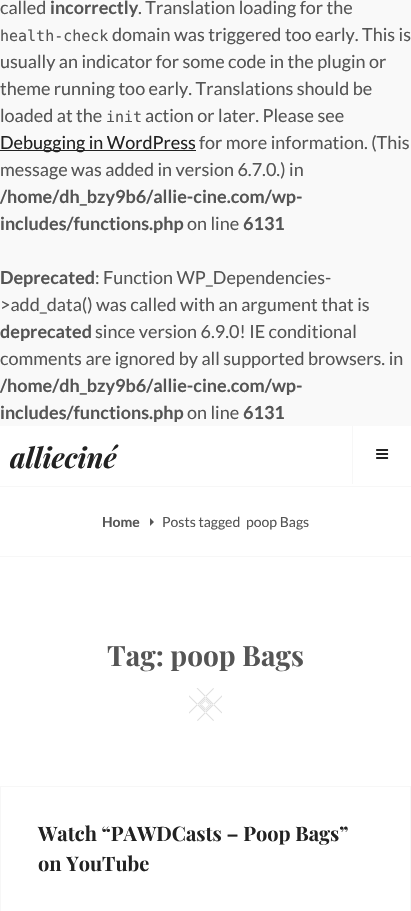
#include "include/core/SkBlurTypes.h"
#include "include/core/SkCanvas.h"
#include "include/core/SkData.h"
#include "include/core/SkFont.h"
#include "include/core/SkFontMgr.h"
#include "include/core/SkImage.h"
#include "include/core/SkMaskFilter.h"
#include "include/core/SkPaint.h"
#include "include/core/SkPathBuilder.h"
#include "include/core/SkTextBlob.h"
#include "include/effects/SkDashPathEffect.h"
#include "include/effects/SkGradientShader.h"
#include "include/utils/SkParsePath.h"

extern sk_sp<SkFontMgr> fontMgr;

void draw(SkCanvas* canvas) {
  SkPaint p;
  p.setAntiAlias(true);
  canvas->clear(SkColorSetRGB(249, 249, 249));
  p.setColor(SkColorSetRGB(34, 34, 34));
  canvas->drawRect(SkRect::MakeLTRB(0, 150, 196, 151), p);
  p.setColor(SK_ColorWHITE);
  canvas->drawRect(SkRect::MakeLTRB(0, 426, 411, 911), p);
  p.setColor(SkColorSetRGB(247, 247, 247));
  canvas->drawRect(SkRect::MakeLTRB(0, 486, 411, 487), p);
  canvas->drawRect(SkRect::MakeLTRB(352, 426, 353, 484), p);
  canvas->drawImageRect(SkImages::DeferredFromEncodedData(SkData::MakeFromFileName("images/1.png")), SkRect::MakeLTRB(376, 449, 389, 459), SkSamplingOptions());
  canvas->drawRect(SkRect::MakeLTRB(0, 556, 411, 557), p);
  p.setColor(SkColorSetRGB(85, 85, 85));
  canvas->drawPath(SkPathBuilder().moveTo(150, 526).lineTo(150, 518).lineTo(154, 522).close().detach(), p);
  canvas->drawImageRect(SkImages::DeferredFromEncodedData(SkData::MakeFromFileName("images/2.png")), SkRect::MakeLTRB(189, 688, 222, 721), SkSamplingOptions());
  p.setStyle(SkPaint::kStroke_Style);
  p.setStrokeWidth(1);
  p.setColor(SkColorSetRGB(247, 247, 247));
  canvas->drawRect(SkRect::MakeLTRB(0.5f, 786.5f, 410.5f, 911.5f), p);
  SkFont font1(fontMgr->matchFamilyStyle("Lato", SkFontStyle::Normal()), 18);
  font1.setSubpixel(true);
  p.setStyle(SkPaint::kFill_Style);
  p.setColor(SkColorSetRGB(85, 85, 85));
  canvas->drawString("called", 0, 14, font1, p);
  SkFont font2(fontMgr->matchFamilyStyle("Lato", SkFontStyle::Bold()), 18);
  font2.setSubpixel(true);
  canvas->drawString("incorrectly", 50, 14, font2, p);
  canvas->drawString(". Translation loading for the", 138, 14, font1, p);
  SkFont font3(fontMgr->matchFamilyStyle("DejaVu Sans Mono", SkFontStyle::Normal()), 15);
  font3.setSubpixel(true);
  canvas->drawString("health-check", 0, 41, font3, p);
  canvas->drawString("domain was triggered too early. This is", 112, 41, font1, p);
  canvas->drawString("usually an indicator for some code in the plugin or", 0, 68, font1, p);
  canvas->drawString("theme running too early. Translations should be", 0, 95, font1, p);
  canvas->drawString("loaded at the", 0, 122, font1, p);
  canvas->drawString("init", 106, 122, font3, p);
  canvas->drawString("action or later. Please see", 145, 122, font1, p);
  p.setColor(SkColorSetRGB(34, 34, 34));
  canvas->drawString("Debugging in WordPress", 0, 149, font1, p);
  p.setColor(SkColorSetRGB(85, 85, 85));
  canvas->drawString("for more information. (This", 199, 149, font1, p);
  canvas->drawString("message was added in version 6.7.0.) in", 0, 176, font1, p);
  canvas->drawString("/home/dh_bzy9b6/allie-cine.com/wp-", 0, 203, font2, p);
  canvas->drawString("includes/functions.php", 0, 230, font2, p);
  canvas->drawString("on line", 187, 230, font1, p);
  canvas->drawString("6131", 243, 230, font2, p);
  canvas->drawString("Deprecated", 0, 284, font2, p);
  canvas->drawString(": Function WP_Dependencies-", 95, 284, font1, p);
  canvas->drawString(">add_data() was called with an argument that is", 0, 311, font1, p);
  canvas->drawString("deprecated", 0, 338, font2, p);
  canvas->drawString("since version 6.9.0! IE conditional", 95, 338, font1, p);
  canvas->drawString("comments are ignored by all supported browsers. in", 0, 365, font1, p);
  canvas->drawString("/home/dh_bzy9b6/allie-cine.com/wp-", 0, 392, font2, p);
  canvas->drawString("includes/functions.php", 0, 419, font2, p);
  canvas->drawString("on line", 187, 419, font1, p);
  canvas->drawString("6131", 243, 419, font2, p);
  SkFont font4(fontMgr->matchFamilyStyle("Playfair Display", SkFontStyle::BoldItalic()), 28);
  font4.setSubpixel(true);
  p.setColor(SkColorSetRGB(34, 34, 34));
  canvas->drawString("allieciné", 10, 468, font4, p);
  SkFont font5(fontMgr->matchFamilyStyle("Lato", SkFontStyle::Bold()), 14);
  font5.setSubpixel(true);
  p.setColor(SkColorSetRGB(85, 85, 85));
  canvas->drawString("Home", 102, 527, font5, p);
  SkFont font6(fontMgr->matchFamilyStyle("Lato", SkFontStyle::Normal()), 14);
  font6.setSubpixel(true);
  canvas->drawString("Posts tagged", 162, 527, font6, p);
  canvas->drawString("poop Bags", 246, 527, font6, p);
  SkFont font7(fontMgr->matchFamilyStyle("Playfair Display", SkFontStyle::Bold()), 28);
  font7.setSubpixel(true);
  canvas->drawString("Tag: poop Bags", 107, 666, font7, p);
  SkFont font8(fontMgr->matchFamilyStyle("Playfair Display", SkFontStyle::Bold()), 20);
  font8.setSubpixel(true);
  p.setColor(SkColorSetRGB(34, 34, 34));
  canvas->drawString("Watch “PAWDCasts – Poop Bags”", 38, 841, font8, p);
  canvas->drawString("on YouTube", 38, 871, font8, p);
}
